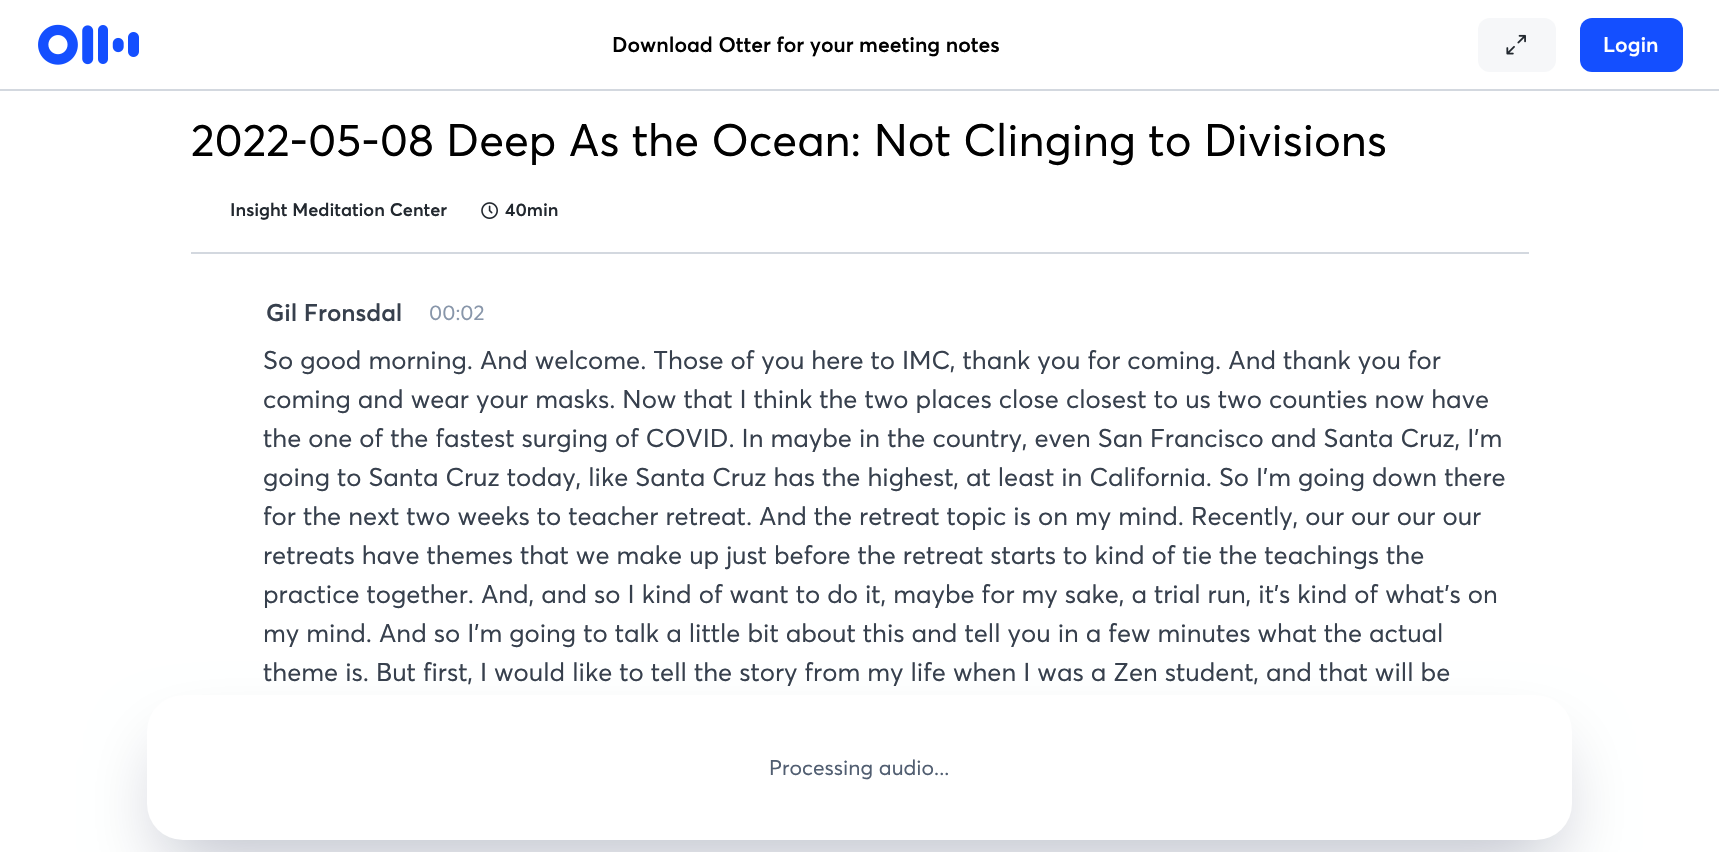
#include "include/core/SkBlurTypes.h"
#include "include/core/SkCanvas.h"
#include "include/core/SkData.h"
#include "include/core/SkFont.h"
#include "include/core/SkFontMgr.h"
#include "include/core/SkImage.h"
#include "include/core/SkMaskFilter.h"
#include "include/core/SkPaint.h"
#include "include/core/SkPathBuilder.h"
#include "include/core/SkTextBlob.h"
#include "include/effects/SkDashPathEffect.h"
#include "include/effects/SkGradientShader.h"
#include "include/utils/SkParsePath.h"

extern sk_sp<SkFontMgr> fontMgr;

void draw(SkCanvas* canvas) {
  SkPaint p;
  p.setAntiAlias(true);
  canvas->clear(SK_ColorWHITE);
  canvas->drawImageRect(SkImages::DeferredFromEncodedData(SkData::MakeFromFileName("images/1.png")), SkRect::MakeLTRB(38, 24, 139, 65), SkSamplingOptions());
  p.setColor(SkColorSetRGB(246, 247, 249));
  canvas->drawRoundRect(SkRect::MakeLTRB(1478, 18, 1556, 72), 12, 12, p);
  canvas->drawImageRect(SkImages::DeferredFromEncodedData(SkData::MakeFromFileName("images/2.png")), SkRect::MakeLTRB(1506, 34, 1526, 55), SkSamplingOptions());
  p.setColor(SkColorSetRGB(20, 79, 255));
  canvas->drawRoundRect(SkRect::MakeLTRB(1580, 18, 1683, 72), 12, 12, p);
  p.setColor(SkColorSetRGB(211, 216, 223));
  canvas->drawRect(SkRect::MakeLTRB(0, 89, 1719, 91), p);
  canvas->drawImageRect(SkImages::DeferredFromEncodedData(SkData::MakeFromFileName("images/3.png")), SkRect::MakeLTRB(481, 202, 498, 219), SkSamplingOptions());
  canvas->drawRect(SkRect::MakeLTRB(191, 252, 1529, 254), p);
  p.setColor(SkColorSetARGB(64, 0, 13, 51));
  p.setMaskFilter(SkMaskFilter::MakeBlur(kNormal_SkBlurStyle, 37.5f));
  canvas->drawRoundRect(SkRect::MakeLTRB(165, 750, 1554, 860), 18, 18, p);
  p.setMaskFilter(nullptr);
  p.setColor(SK_ColorWHITE);
  canvas->drawRoundRect(SkRect::MakeLTRB(147, 695, 1572, 840), 36, 36, p);
  SkFont font1(fontMgr->matchFamilyStyle("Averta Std", SkFontStyle(600, SkFontStyle::kNormal_Width, SkFontStyle::kUpright_Slant)), 21);
  font1.setSubpixel(true);
  p.setColor(SK_ColorBLACK);
  canvas->drawString("Download Otter for your meeting notes", 612, 52, font1, p);
  p.setColor(SK_ColorWHITE);
  canvas->drawString("Login", 1603, 52, font1, p);
  SkFont font2(fontMgr->matchFamilyStyle("Averta Std", SkFontStyle::Normal()), 45);
  font2.setSubpixel(true);
  p.setColor(SK_ColorBLACK);
  canvas->drawString("2022-05-08 Deep As the Ocean: Not Clinging to Divisions", 191, 156, font2, p);
  SkFont font3(fontMgr->matchFamilyStyle("Averta Std", SkFontStyle(600, SkFontStyle::kNormal_Width, SkFontStyle::kUpright_Slant)), 18);
  font3.setSubpixel(true);
  p.setColor(SkColorSetRGB(34, 40, 47));
  canvas->drawString("Insight Meditation Center", 230, 216, font3, p);
  canvas->drawString("40min", 505, 216, font3, p);
  SkFont font4(fontMgr->matchFamilyStyle("Averta Std", SkFontStyle(600, SkFontStyle::kNormal_Width, SkFontStyle::kUpright_Slant)), 24);
  font4.setSubpixel(true);
  p.setColor(SkColorSetRGB(55, 64, 77));
  canvas->drawString("Gil Fronsdal", 266, 321, font4, p);
  SkFont font5(fontMgr->matchFamilyStyle("Averta Std", SkFontStyle::Normal()), 21);
  font5.setSubpixel(true);
  p.setColor(SkColorSetRGB(136, 150, 170));
  canvas->drawString("00:02", 429, 320, font5, p);
  SkFont font6(fontMgr->matchFamilyStyle("Averta Std", SkFontStyle::Normal()), 25.5f);
  font6.setSubpixel(true);
  p.setColor(SkColorSetRGB(55, 64, 77));
  canvas->drawString("So good morning. And welcome. Those of you here to IMC, thank you for coming. And thank you for", 263, 369, font6, p);
  canvas->drawString("coming and wear your masks. Now that I think the two places close closest to us two counties now have", 263, 408, font6, p);
  canvas->drawString("the one of the fastest surging of COVID. In maybe in the country, even San Francisco and Santa Cruz, I'm", 263, 447, font6, p);
  canvas->drawString("going to Santa Cruz today, like Santa Cruz has the highest, at least in California. So I'm going down there", 263, 486, font6, p);
  canvas->drawString("for the next two weeks to teacher retreat. And the retreat topic is on my mind. Recently, our our our our", 263, 525, font6, p);
  canvas->drawString("retreats have themes that we make up just before the retreat starts to kind of tie the teachings the", 263, 564, font6, p);
  canvas->drawString("practice together. And, and so I kind of want to do it, maybe for my sake, a trial run, it's kind of what's on", 263, 603, font6, p);
  canvas->drawString("my mind. And so I'm going to talk a little bit about this and tell you in a few minutes what the actual", 263, 642, font6, p);
  canvas->drawString("theme is. But first, I would like to tell the story from my life when I was a Zen student, and that will be", 263, 681, font6, p);
  p.setColor(SkColorSetRGB(81, 94, 113));
  canvas->drawString("Processing audio...", 769, 775, font5, p);
}
